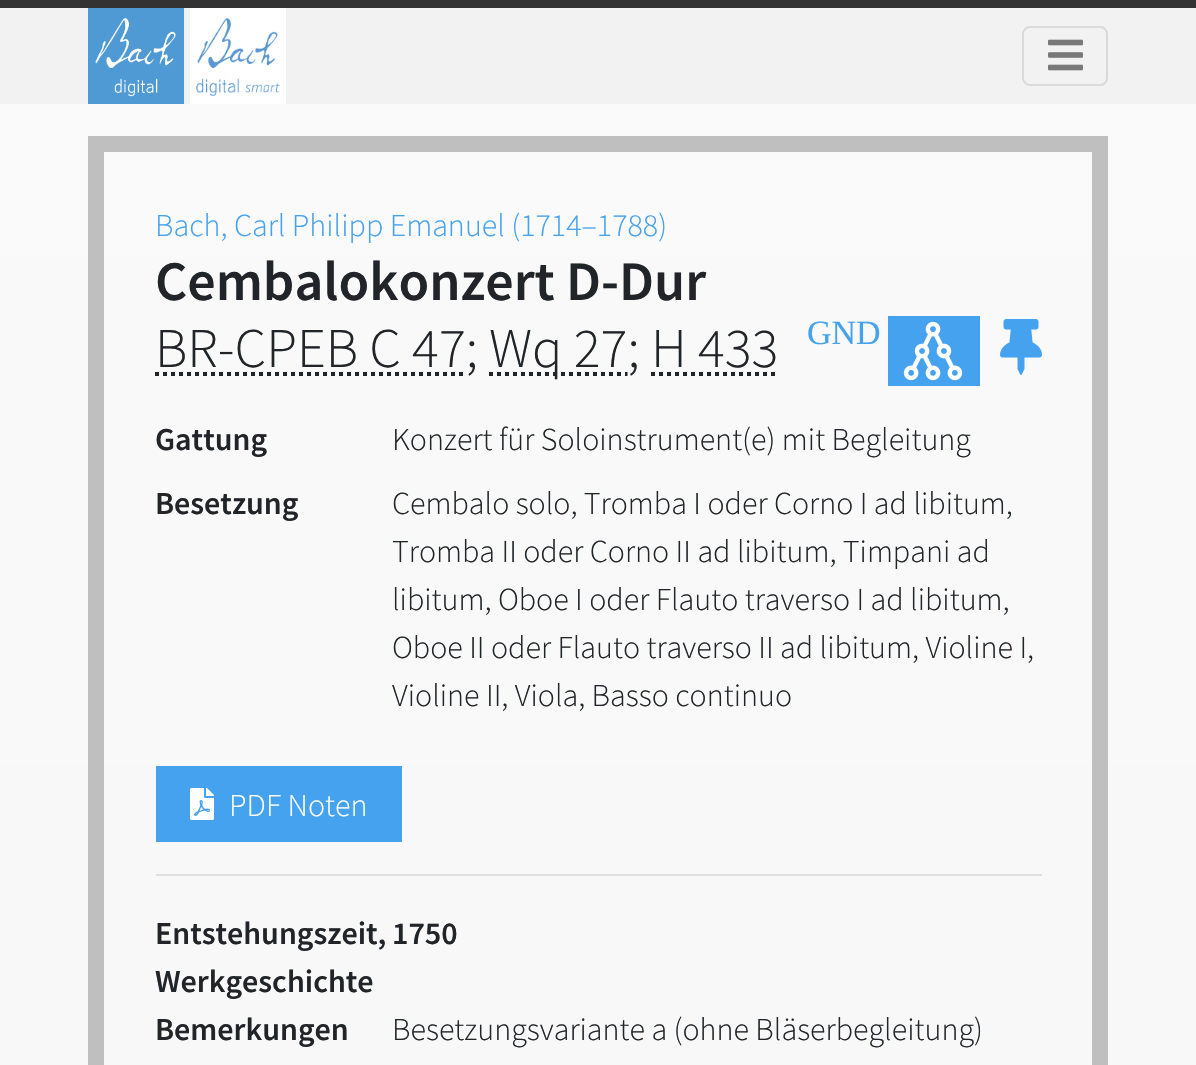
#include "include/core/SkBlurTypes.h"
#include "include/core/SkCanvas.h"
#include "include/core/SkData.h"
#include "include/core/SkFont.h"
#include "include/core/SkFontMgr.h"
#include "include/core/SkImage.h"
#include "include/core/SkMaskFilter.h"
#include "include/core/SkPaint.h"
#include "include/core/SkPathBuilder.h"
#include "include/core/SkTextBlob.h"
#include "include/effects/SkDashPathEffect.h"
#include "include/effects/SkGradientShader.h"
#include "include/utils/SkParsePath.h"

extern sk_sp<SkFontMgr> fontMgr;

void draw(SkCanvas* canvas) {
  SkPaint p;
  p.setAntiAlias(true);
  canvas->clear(SK_ColorWHITE);
  {
    const SkColor colors[] = {SkColorSetRGB(250, 250, 250), SkColorSetRGB(242, 242, 242)};
    const float stops[] = {0, 1};
    const SkPoint ends[] = {{598, 0}, {598, 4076}};
    p.setShader(SkGradientShader::MakeLinear(ends, colors, stops, 2, SkTileMode::kClamp));
    p.setAlpha(255);
  }
  canvas->drawRect(SkRect::MakeLTRB(0, 104, 1196, 1065), p);
  p.setShader(nullptr);
  p.setColor(SkColorSetRGB(51, 51, 51));
  canvas->drawRect(SkRect::MakeLTRB(0, 0, 1196, 8), p);
  p.setColor(SkColorSetRGB(242, 242, 242));
  canvas->drawRect(SkRect::MakeLTRB(0, 8, 1196, 104), p);
  canvas->drawImageRect(SkImages::DeferredFromEncodedData(SkData::MakeFromFileName("images/1.png")), SkRect::MakeLTRB(88, 8, 184, 104), SkSamplingOptions());
  p.setColor(SK_ColorWHITE);
  canvas->drawRect(SkRect::MakeLTRB(190, 8, 286, 104), p);
  canvas->drawImageRect(SkImages::DeferredFromEncodedData(SkData::MakeFromFileName("images/2.png")), SkRect::MakeLTRB(196, 18, 280, 96), SkSamplingOptions());
  p.setStyle(SkPaint::kStroke_Style);
  p.setStrokeWidth(2);
  p.setColor(SkColorSetRGB(218, 218, 218));
  canvas->drawRoundRect(SkRect::MakeLTRB(1023, 27, 1107, 85), 7, 7, p);
  canvas->drawImageRect(SkImages::DeferredFromEncodedData(SkData::MakeFromFileName("images/3.png")), SkRect::MakeLTRB(1048, 39, 1083, 71), SkSamplingOptions());
  p.setStrokeWidth(16);
  p.setColor(SkColorSetRGB(191, 191, 191));
  canvas->drawRect(SkRect::MakeLTRB(96, 144, 1100, 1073), p);
  p.setStrokeWidth(4);
  p.setColor(SkColorSetRGB(33, 37, 41));
  p.setPathEffect(SkDashPathEffect::Make({{4, 4}}, 0));
  canvas->drawPath(SkPathBuilder().moveTo(155, 374).lineTo(466, 374).detach(), p);
  p.setPathEffect(nullptr);
  p.setPathEffect(SkDashPathEffect::Make({{4, 4}}, 0));
  canvas->drawPath(SkPathBuilder().moveTo(489, 374).lineTo(627.5f, 374).detach(), p);
  p.setPathEffect(nullptr);
  p.setStyle(SkPaint::kFill_Style);
  p.setColor(SkColorSetRGB(69, 162, 239));
  canvas->drawRect(SkRect::MakeLTRB(888, 316, 980, 386), p);
  canvas->drawImageRect(SkImages::DeferredFromEncodedData(SkData::MakeFromFileName("images/4.png")), SkRect::MakeLTRB(903, 321, 963, 381), SkSamplingOptions());
  canvas->drawImageRect(SkImages::DeferredFromEncodedData(SkData::MakeFromFileName("images/5.png")), SkRect::MakeLTRB(1000, 319, 1042, 375), SkSamplingOptions());
  p.setStyle(SkPaint::kStroke_Style);
  p.setColor(SkColorSetRGB(33, 37, 41));
  p.setPathEffect(SkDashPathEffect::Make({{4, 4}}, 0));
  canvas->drawPath(SkPathBuilder().moveTo(651, 374).lineTo(778.5f, 374).detach(), p);
  p.setPathEffect(nullptr);
  p.setStyle(SkPaint::kFill_Style);
  p.setColor(SkColorSetRGB(69, 162, 239));
  canvas->drawRect(SkRect::MakeLTRB(156, 766, 402, 842), p);
  canvas->drawImageRect(SkImages::DeferredFromEncodedData(SkData::MakeFromFileName("images/6.png")), SkRect::MakeLTRB(190, 788, 214, 820), SkSamplingOptions());
  p.setColor(SkColorSetRGB(223, 223, 223));
  canvas->drawRect(SkRect::MakeLTRB(156, 874, 1042, 876), p);
  SkFont font1(fontMgr->matchFamilyStyle("Source Sans Pro", SkFontStyle(300, SkFontStyle::kNormal_Width, SkFontStyle::kUpright_Slant)), 32);
  font1.setSubpixel(true);
  p.setColor(SkColorSetRGB(69, 162, 239));
  canvas->drawString("Bach, Carl Philipp Emanuel (1714–1788)", 155, 236, font1, p);
  SkFont font2(fontMgr->matchFamilyStyle("Source Sans Pro", SkFontStyle(600, SkFontStyle::kNormal_Width, SkFontStyle::kUpright_Slant)), 56);
  font2.setSubpixel(true);
  p.setColor(SkColorSetRGB(33, 37, 41));
  canvas->drawString("Cembalokonzert D-Dur", 155, 300, font2, p);
  SkFont font3(fontMgr->matchFamilyStyle("Source Sans Pro", SkFontStyle(300, SkFontStyle::kNormal_Width, SkFontStyle::kUpright_Slant)), 56);
  font3.setSubpixel(true);
  canvas->drawString("BR‑CPEB C 47;", 155, 367, font3, p);
  canvas->drawString("Wq 27; H 433", 489, 367, font3, p);
  SkFont font4(fontMgr->matchFamilyStyle("Liberation Serif", SkFontStyle::Normal()), 34);
  font4.setSubpixel(true);
  p.setColor(SkColorSetRGB(69, 162, 239));
  canvas->drawString("GND", 807, 344, font4, p);
  SkFont font5(fontMgr->matchFamilyStyle("Source Sans Pro", SkFontStyle(600, SkFontStyle::kNormal_Width, SkFontStyle::kUpright_Slant)), 32);
  font5.setSubpixel(true);
  p.setColor(SkColorSetRGB(33, 37, 41));
  canvas->drawString("Gattung", 155, 450, font5, p);
  canvas->drawString("Konzert für Soloinstrument(e) mit Begleitung", 392, 450, font1, p);
  canvas->drawString("Besetzung", 155, 514, font5, p);
  canvas->drawString("Cembalo solo, Tromba I oder Corno I ad libitum,", 392, 514, font1, p);
  canvas->drawString("Tromba II oder Corno II ad libitum, Timpani ad", 392, 562, font1, p);
  canvas->drawString("libitum, Oboe I oder Flauto traverso I ad libitum,", 392, 610, font1, p);
  canvas->drawString("Oboe II oder Flauto traverso II ad libitum, Violine I,", 392, 658, font1, p);
  canvas->drawString("Violine II, Viola, Basso continuo", 392, 706, font1, p);
  p.setColor(SK_ColorWHITE);
  canvas->drawString("PDF Noten", 229, 816, font1, p);
  p.setColor(SkColorSetRGB(33, 37, 41));
  canvas->drawString("Entstehungszeit,", 155, 944, font5, p);
  canvas->drawString("Werkgeschichte", 155, 992, font5, p);
  canvas->drawString("1750", 392, 944, font5, p);
  canvas->drawString("Bemerkungen", 155, 1040, font5, p);
  canvas->drawString("Besetzungsvariante a (ohne Bläserbegleitung)", 392, 1040, font1, p);
}
